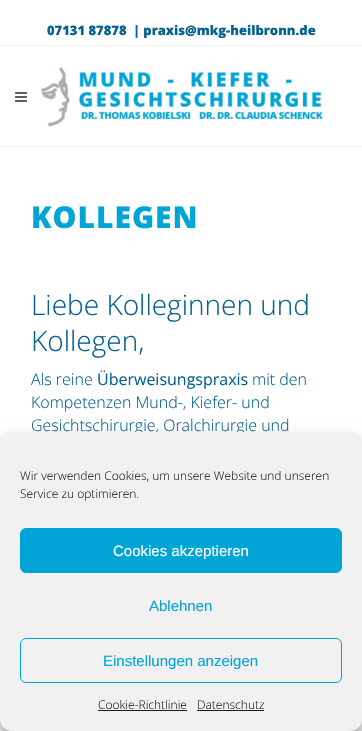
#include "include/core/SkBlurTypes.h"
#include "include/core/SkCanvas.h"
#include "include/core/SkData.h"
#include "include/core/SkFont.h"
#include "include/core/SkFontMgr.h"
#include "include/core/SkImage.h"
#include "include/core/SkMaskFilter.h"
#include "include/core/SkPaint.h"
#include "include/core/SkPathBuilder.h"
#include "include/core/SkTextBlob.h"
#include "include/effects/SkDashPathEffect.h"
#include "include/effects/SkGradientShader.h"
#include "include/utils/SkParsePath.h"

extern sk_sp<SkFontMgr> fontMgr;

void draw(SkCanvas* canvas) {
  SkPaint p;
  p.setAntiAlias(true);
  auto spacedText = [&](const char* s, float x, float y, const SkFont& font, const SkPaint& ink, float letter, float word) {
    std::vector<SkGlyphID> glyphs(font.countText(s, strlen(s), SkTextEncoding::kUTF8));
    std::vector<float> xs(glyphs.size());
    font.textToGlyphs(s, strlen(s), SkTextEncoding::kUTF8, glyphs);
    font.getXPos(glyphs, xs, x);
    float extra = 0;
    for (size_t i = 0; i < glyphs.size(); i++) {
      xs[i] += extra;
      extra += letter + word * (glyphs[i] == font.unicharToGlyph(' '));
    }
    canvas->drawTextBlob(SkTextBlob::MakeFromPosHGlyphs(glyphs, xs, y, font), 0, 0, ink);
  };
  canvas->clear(SK_ColorWHITE);
  p.setColor(SkColorSetRGB(237, 237, 237));
  canvas->drawRect(SkRect::MakeLTRB(0, 45, 362, 46), p);
  canvas->drawRect(SkRect::MakeLTRB(0, 146, 362, 147), p);
  canvas->drawImageRect(SkImages::DeferredFromEncodedData(SkData::MakeFromFileName("images/1.png")), SkRect::MakeLTRB(15, 92, 27, 102), SkSamplingOptions());
  canvas->drawImageRect(SkImages::DeferredFromEncodedData(SkData::MakeFromFileName("images/2.png")), SkRect::MakeLTRB(41, 67, 326, 127), SkSamplingOptions());
  p.setColor(SkColorSetARGB(59, 0, 0, 0));
  p.setMaskFilter(SkMaskFilter::MakeBlur(kNormal_SkBlurStyle, 3));
  canvas->drawRoundRect(SkRect::MakeLTRB(0, 438, 362, 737), 12, 12, p);
  p.setMaskFilter(nullptr);
  p.setColor(SkColorSetARGB(48, 0, 0, 0));
  p.setMaskFilter(SkMaskFilter::MakeBlur(kNormal_SkBlurStyle, 10));
  canvas->drawRoundRect(SkRect::MakeLTRB(0, 442, 362, 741), 12, 12, p);
  p.setMaskFilter(nullptr);
  SkFont font1(fontMgr->matchFamilyStyle("Open Sans", SkFontStyle(800, SkFontStyle::kNormal_Width, SkFontStyle::kUpright_Slant)), 13);
  font1.setSubpixel(true);
  p.setColor(SkColorSetRGB(4, 97, 145));
  canvas->drawString("07131 87878  | praxis@mkg-heilbronn.de", 47, 35, font1, p);
  SkFont font2(fontMgr->matchFamilyStyle("Open Sans", SkFontStyle(800, SkFontStyle::kNormal_Width, SkFontStyle::kUpright_Slant)), 30);
  font2.setSubpixel(true);
  p.setColor(SkColorSetRGB(0, 165, 214));
  spacedText("KOLLEGEN", 31, 228, font2, p, 1, 0);
  SkFont font3(fontMgr->matchFamilyStyle("Open Sans", SkFontStyle(300, SkFontStyle::kNormal_Width, SkFontStyle::kUpright_Slant)), 28);
  font3.setSubpixel(true);
  p.setColor(SkColorSetRGB(4, 97, 145));
  canvas->drawString("Liebe Kolleginnen und", 31, 315, font3, p);
  canvas->drawString("Kollegen,", 31, 351, font3, p);
  SkFont font4(fontMgr->matchFamilyStyle("Open Sans", SkFontStyle(300, SkFontStyle::kNormal_Width, SkFontStyle::kUpright_Slant)), 16);
  font4.setSubpixel(true);
  canvas->drawString("Als reine", 31, 385, font4, p);
  SkFont font5(fontMgr->matchFamilyStyle("Open Sans", SkFontStyle::Normal()), 16);
  font5.setSubpixel(true);
  canvas->drawString("Überweisungspraxis", 97, 385, font5, p);
  canvas->drawString("mit den", 252, 385, font4, p);
  canvas->drawString("Kompetenzen Mund-, Kiefer- und", 31, 408, font4, p);
  canvas->drawString("Gesichtschirurgie, Oralchirurgie und", 31, 431, font4, p);
  p.setColor(SkColorSetRGB(241, 241, 241));
  canvas->drawRoundRect(SkRect::MakeLTRB(0, 432, 362, 731), 12, 12, p);
  SkFont font6(fontMgr->matchFamilyStyle("Open Sans", SkFontStyle(300, SkFontStyle::kNormal_Width, SkFontStyle::kUpright_Slant)), 12);
  font6.setSubpixel(true);
  p.setColor(SkColorSetRGB(25, 30, 35));
  canvas->drawString("Wir verwenden Cookies, um unsere Website und unseren", 20, 480, font6, p);
  canvas->drawString("Service zu optimieren.", 20, 498, font6, p);
  p.setColor(SkColorSetRGB(0, 165, 214));
  canvas->drawRoundRect(SkRect::MakeLTRB(20.5f, 528.5f, 341.5f, 572.5f), 5.5f, 5.5f, p);
  p.setStyle(SkPaint::kStroke_Style);
  p.setStrokeWidth(1);
  canvas->drawRoundRect(SkRect::MakeLTRB(20.5f, 528.5f, 341.5f, 572.5f), 5.5f, 5.5f, p);
  SkFont font7(fontMgr->matchFamilyStyle("Liberation Sans", SkFontStyle::Normal()), 15);
  font7.setSubpixel(true);
  p.setStyle(SkPaint::kFill_Style);
  p.setColor(SK_ColorWHITE);
  canvas->drawString("Cookies akzeptieren", 113, 556, font7, p);
  p.setColor(SkColorSetRGB(0, 165, 214));
  canvas->drawString("Ablehnen", 149, 611, font7, p);
  p.setStyle(SkPaint::kStroke_Style);
  canvas->drawRoundRect(SkRect::MakeLTRB(20.5f, 638.5f, 341.5f, 682.5f), 5.5f, 5.5f, p);
  p.setStyle(SkPaint::kFill_Style);
  canvas->drawString("Einstellungen anzeigen", 103, 666, font7, p);
  p.setColor(SkColorSetRGB(25, 30, 35));
  canvas->drawString("Cookie-Richtlinie", 98, 709, font6, p);
  canvas->drawRect(SkRect::MakeLTRB(98, 710, 187, 711), p);
  canvas->drawString("Datenschutz", 197, 709, font6, p);
  canvas->drawRect(SkRect::MakeLTRB(197, 710, 264, 711), p);
}
